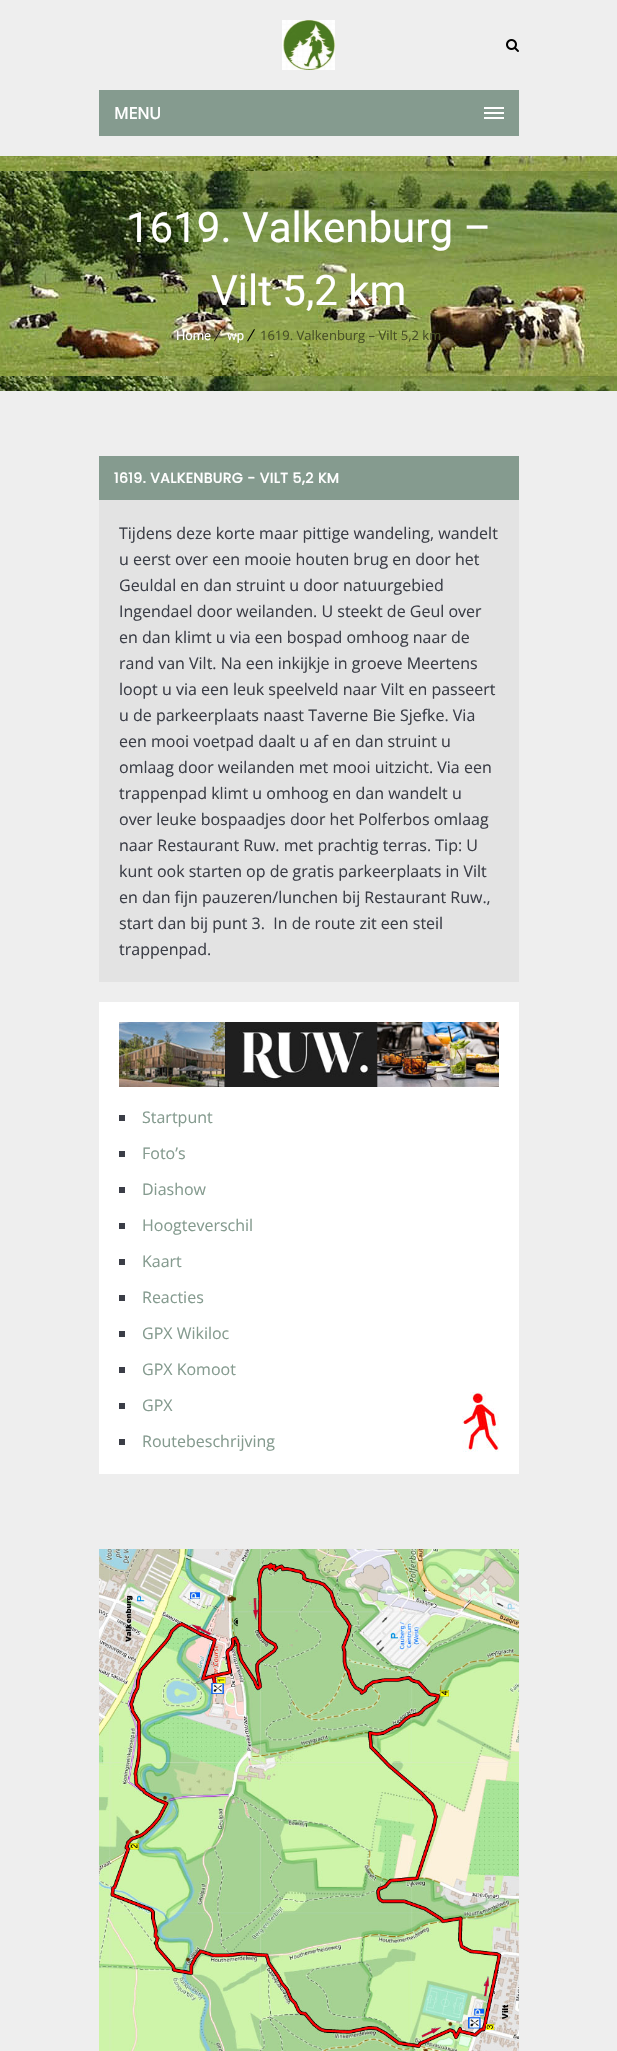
#include "include/core/SkBlurTypes.h"
#include "include/core/SkCanvas.h"
#include "include/core/SkData.h"
#include "include/core/SkFont.h"
#include "include/core/SkFontMgr.h"
#include "include/core/SkImage.h"
#include "include/core/SkMaskFilter.h"
#include "include/core/SkPaint.h"
#include "include/core/SkPathBuilder.h"
#include "include/core/SkTextBlob.h"
#include "include/effects/SkDashPathEffect.h"
#include "include/effects/SkGradientShader.h"
#include "include/utils/SkParsePath.h"

extern sk_sp<SkFontMgr> fontMgr;

void draw(SkCanvas* canvas) {
  SkPaint p;
  p.setAntiAlias(true);
  auto spacedText = [&](const char* s, float x, float y, const SkFont& font, const SkPaint& ink, float letter, float word) {
    std::vector<SkGlyphID> glyphs(font.countText(s, strlen(s), SkTextEncoding::kUTF8));
    std::vector<float> xs(glyphs.size());
    font.textToGlyphs(s, strlen(s), SkTextEncoding::kUTF8, glyphs);
    font.getXPos(glyphs, xs, x);
    float extra = 0;
    for (size_t i = 0; i < glyphs.size(); i++) {
      xs[i] += extra;
      extra += letter + word * (glyphs[i] == font.unicharToGlyph(' '));
    }
    canvas->drawTextBlob(SkTextBlob::MakeFromPosHGlyphs(glyphs, xs, y, font), 0, 0, ink);
  };
  canvas->clear(SkColorSetRGB(238, 238, 238));
  canvas->drawImageRect(SkImages::DeferredFromEncodedData(SkData::MakeFromFileName("images/1.png")), SkRect::MakeLTRB(282, 20, 335, 70), SkSamplingOptions());
  canvas->drawImageRect(SkImages::DeferredFromEncodedData(SkData::MakeFromFileName("images/2.png")), SkRect::MakeLTRB(506, 39, 519, 52), SkSamplingOptions());
  p.setColor(SkColorSetRGB(133, 155, 143));
  canvas->drawRect(SkRect::MakeLTRB(99, 90, 519, 136), p);
  p.setColor(SK_ColorWHITE);
  canvas->drawRect(SkRect::MakeLTRB(484, 112, 504, 114), p);
  canvas->drawRect(SkRect::MakeLTRB(484, 107, 504, 109), p);
  canvas->drawRect(SkRect::MakeLTRB(484, 117, 504, 119), p);
  canvas->drawImageRect(SkImages::DeferredFromEncodedData(SkData::MakeFromFileName("images/3.png")), SkRect::MakeLTRB(0, 156, 617, 391), SkSamplingOptions());
  p.setColor(SkColorSetRGB(133, 155, 143));
  canvas->drawRect(SkRect::MakeLTRB(99, 456, 519, 500), p);
  p.setColor(SkColorSetRGB(227, 227, 227));
  canvas->drawRect(SkRect::MakeLTRB(99, 500, 519, 982), p);
  p.setColor(SK_ColorWHITE);
  canvas->drawRect(SkRect::MakeLTRB(99, 1002, 519, 1474), p);
  canvas->drawImageRect(SkImages::DeferredFromEncodedData(SkData::MakeFromFileName("images/4.png")), SkRect::MakeLTRB(119, 1022, 499, 1087), SkSamplingOptions());
  p.setColor(SkColorSetRGB(59, 62, 71));
  canvas->drawRect(SkRect::MakeLTRB(119, 1115, 125, 1121), p);
  canvas->drawRect(SkRect::MakeLTRB(119, 1151, 125, 1157), p);
  canvas->drawRect(SkRect::MakeLTRB(119, 1187, 125, 1193), p);
  canvas->drawRect(SkRect::MakeLTRB(119, 1223, 125, 1229), p);
  canvas->drawRect(SkRect::MakeLTRB(119, 1259, 125, 1265), p);
  canvas->drawRect(SkRect::MakeLTRB(119, 1295, 125, 1301), p);
  canvas->drawRect(SkRect::MakeLTRB(119, 1331, 125, 1337), p);
  canvas->drawRect(SkRect::MakeLTRB(119, 1367, 125, 1373), p);
  canvas->drawRect(SkRect::MakeLTRB(119, 1403, 125, 1409), p);
  canvas->drawImageRect(SkImages::DeferredFromEncodedData(SkData::MakeFromFileName("images/5.png")), SkRect::MakeLTRB(462, 1392, 499, 1452), SkSamplingOptions());
  canvas->drawRect(SkRect::MakeLTRB(119, 1439, 125, 1445), p);
  canvas->drawImageRect(SkImages::DeferredFromEncodedData(SkData::MakeFromFileName("images/6.png")), SkRect::MakeLTRB(99, 1549, 519, 2051), SkSamplingOptions());
  SkFont font1(fontMgr->matchFamilyStyle("Open Sans", SkFontStyle::Bold()), 16);
  font1.setSubpixel(true);
  p.setColor(SK_ColorWHITE);
  canvas->drawString("MENU", 114, 119, font1, p);
  SkFont font2(fontMgr->matchFamilyStyle("Roboto", SkFontStyle::Normal()), 42);
  font2.setSubpixel(true);
  canvas->drawString("1619. Valkenburg –", 126, 242, font2, p);
  canvas->drawString("Vilt 5,2 km", 211, 305, font2, p);
  SkFont font3(fontMgr->matchFamilyStyle("Roboto", SkFontStyle::Normal()), 13);
  font3.setSubpixel(true);
  canvas->drawString("Home", 176, 340, font3, p);
  SkFont font4(fontMgr->matchFamilyStyle("Open Sans", SkFontStyle::Normal()), 13);
  font4.setSubpixel(true);
  p.setColor(SkColorSetRGB(71, 80, 38));
  canvas->drawString("1619. Valkenburg – Vilt 5,2 km", 260, 340, font4, p);
  p.setColor(SK_ColorWHITE);
  canvas->drawString("wp", 227, 340, font3, p);
  p.setColor(SK_ColorBLACK);
  canvas->drawPath(SkPathBuilder().moveTo(221, 329).lineTo(221.5f, 329.5f).lineTo(214.5f, 341.5f).lineTo(214, 341).close().moveTo(254, 329).lineTo(255, 329.5f).lineTo(248, 341.5f).lineTo(247, 341).close().detach(), p);
  SkFont font5(fontMgr->matchFamilyStyle("Poppins", SkFontStyle::Bold()), 14);
  font5.setSubpixel(true);
  p.setColor(SK_ColorWHITE);
  spacedText("1619. VALKENBURG - VILT 5,2 KM", 114, 483, font5, p, 0.5f, 0);
  SkFont font6(fontMgr->matchFamilyStyle("Open Sans", SkFontStyle::Normal()), 16);
  font6.setSubpixel(true);
  p.setColor(SkColorSetRGB(59, 62, 71));
  canvas->drawString("Tijdens deze korte maar pittige wandeling, wandelt", 119, 539, font6, p);
  canvas->drawString("u eerst over een mooie houten brug en door het", 119, 565, font6, p);
  canvas->drawString("Geuldal en dan struint u door natuurgebied", 119, 591, font6, p);
  canvas->drawString("Ingendael door weilanden. U steekt de Geul over", 119, 617, font6, p);
  canvas->drawString("en dan klimt u via een bospad omhoog naar de", 119, 643, font6, p);
  canvas->drawString("rand van Vilt. Na een inkijkje in groeve Meertens", 119, 669, font6, p);
  canvas->drawString("loopt u via een leuk speelveld naar Vilt en passeert", 119, 695, font6, p);
  canvas->drawString("u de parkeerplaats naast Taverne Bie Sjefke. Via", 119, 721, font6, p);
  canvas->drawString("een mooi voetpad daalt u af en dan struint u", 119, 747, font6, p);
  canvas->drawString("omlaag door weilanden met mooi uitzicht. Via een", 119, 773, font6, p);
  canvas->drawString("trappenpad klimt u omhoog en dan wandelt u", 119, 799, font6, p);
  canvas->drawString("over leuke bospaadjes door het Polferbos omlaag", 119, 825, font6, p);
  canvas->drawString("naar Restaurant Ruw. met prachtig terras. Tip: U", 119, 851, font6, p);
  canvas->drawString("kunt ook starten op de gratis parkeerplaats in Vilt", 119, 877, font6, p);
  canvas->drawString("en dan fijn pauzeren/lunchen bij Restaurant Ruw.,", 119, 903, font6, p);
  canvas->drawString("start dan bij punt 3.  In de route zit een steil", 119, 929, font6, p);
  canvas->drawString("trappenpad.", 119, 955, font6, p);
  p.setColor(SkColorSetRGB(133, 155, 143));
  canvas->drawString("Startpunt", 142, 1123, font6, p);
  canvas->drawString("Foto’s", 142, 1159, font6, p);
  canvas->drawString("Diashow", 142, 1195, font6, p);
  canvas->drawString("Hoogteverschil", 142, 1231, font6, p);
  canvas->drawString("Kaart", 142, 1267, font6, p);
  canvas->drawString("Reacties", 142, 1303, font6, p);
  canvas->drawString("GPX Wikiloc", 142, 1339, font6, p);
  canvas->drawString("GPX Komoot", 142, 1375, font6, p);
  canvas->drawString("GPX", 142, 1411, font6, p);
  canvas->drawString("Routebeschrijving", 142, 1447, font6, p);
}
